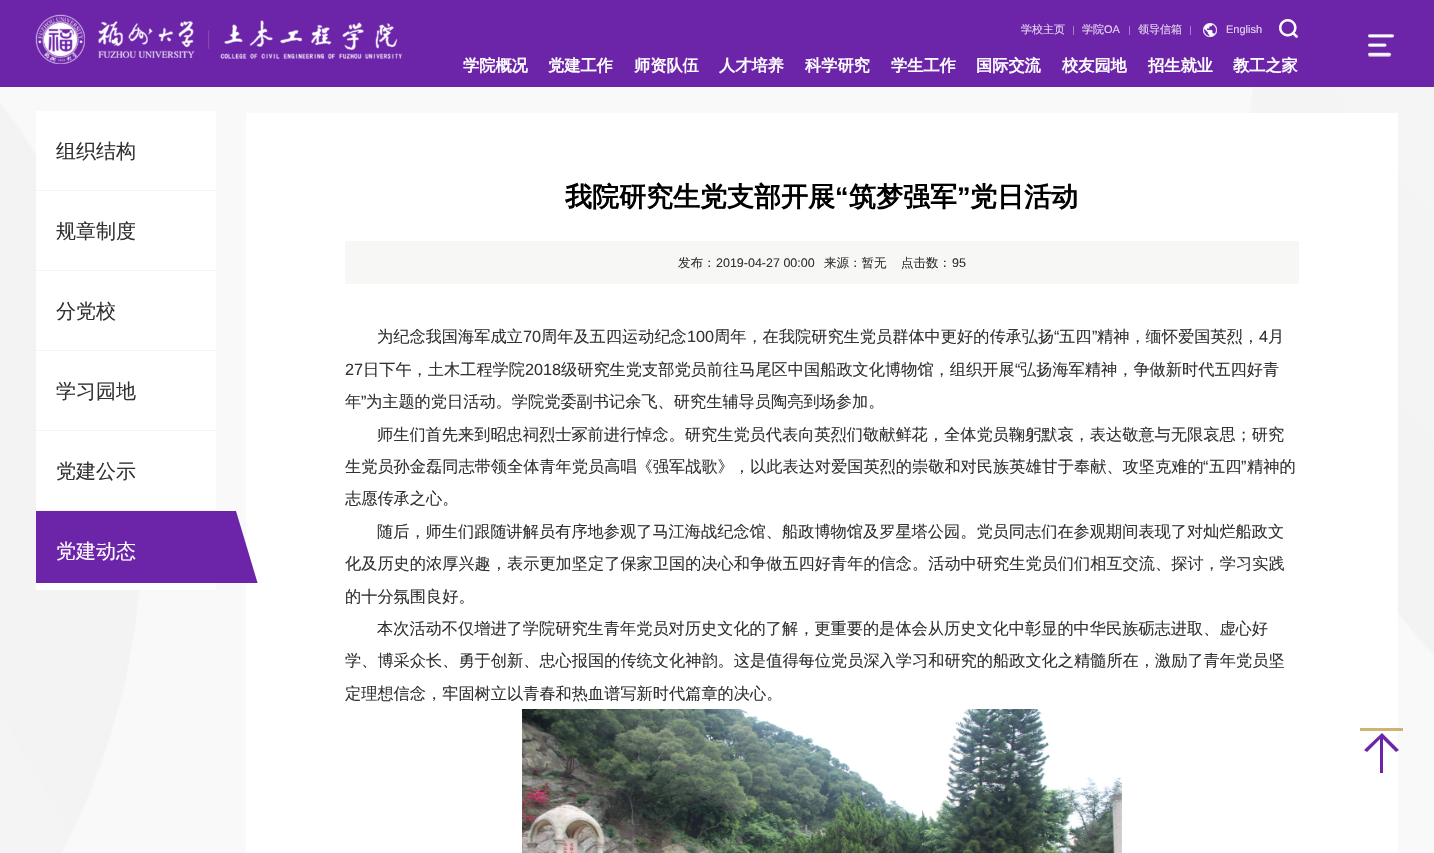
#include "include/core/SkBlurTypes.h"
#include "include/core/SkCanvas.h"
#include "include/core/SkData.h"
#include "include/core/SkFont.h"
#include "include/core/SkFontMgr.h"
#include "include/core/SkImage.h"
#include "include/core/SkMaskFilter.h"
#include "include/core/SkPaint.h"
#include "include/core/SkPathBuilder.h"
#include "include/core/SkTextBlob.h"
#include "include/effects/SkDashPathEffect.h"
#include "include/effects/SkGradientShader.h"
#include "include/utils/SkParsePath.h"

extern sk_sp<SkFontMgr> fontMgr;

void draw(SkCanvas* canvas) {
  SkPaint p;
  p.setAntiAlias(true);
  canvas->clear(SK_ColorWHITE);
  p.setColor(SkColorSetRGB(108, 36, 169));
  canvas->drawRect(SkRect::MakeLTRB(0, 0, 1434, 87), p);
  canvas->drawImageRect(SkImages::DeferredFromEncodedData(SkData::MakeFromFileName("images/1.png")), SkRect::MakeLTRB(35, 14, 403, 64), SkSamplingOptions());
  p.setColor(SkColorSetRGB(167, 124, 203));
  canvas->drawRect(SkRect::MakeLTRB(1073, 26, 1074, 35), p);
  canvas->drawRect(SkRect::MakeLTRB(1129, 26, 1130, 35), p);
  canvas->drawImageRect(SkImages::DeferredFromEncodedData(SkData::MakeFromFileName("images/2.png")), SkRect::MakeLTRB(1203, 23, 1217, 37), SkSamplingOptions());
  canvas->drawRect(SkRect::MakeLTRB(1190, 26, 1191, 35), p);
  canvas->drawImageRect(SkImages::DeferredFromEncodedData(SkData::MakeFromFileName("images/3.png")), SkRect::MakeLTRB(1279, 19, 1298, 38), SkSamplingOptions());
  canvas->drawImageRect(SkImages::DeferredFromEncodedData(SkData::MakeFromFileName("images/4.png")), SkRect::MakeLTRB(1368, 34, 1394, 57), SkSamplingOptions());
  canvas->drawImageRect(SkImages::DeferredFromEncodedData(SkData::MakeFromFileName("images/5.png")), SkRect::MakeLTRB(0, 87, 1434, 853), SkSamplingOptions());
  p.setColor(SK_ColorWHITE);
  canvas->drawRect(SkRect::MakeLTRB(36, 111, 216, 590), p);
  p.setColor(SkColorSetRGB(245, 245, 245));
  canvas->drawRect(SkRect::MakeLTRB(36, 190, 216, 191), p);
  canvas->drawRect(SkRect::MakeLTRB(36, 270, 216, 271), p);
  canvas->drawRect(SkRect::MakeLTRB(36, 350, 216, 351), p);
  canvas->drawRect(SkRect::MakeLTRB(36, 430, 216, 431), p);
  canvas->drawRect(SkRect::MakeLTRB(36, 510, 216, 511), p);
  p.setColor(SK_ColorWHITE);
  canvas->drawRect(SkRect::MakeLTRB(246, 113, 1398, 853), p);
  canvas->drawImageRect(SkImages::DeferredFromEncodedData(SkData::MakeFromFileName("images/6.png")), SkRect::MakeLTRB(36, 511, 258, 583), SkSamplingOptions());
  p.setColor(SkColorSetRGB(245, 245, 245));
  canvas->drawRect(SkRect::MakeLTRB(140, 590, 216, 591), p);
  p.setColor(SkColorSetRGB(247, 247, 246));
  canvas->drawRect(SkRect::MakeLTRB(345, 241, 1299, 284), p);
  canvas->drawImageRect(SkImages::DeferredFromEncodedData(SkData::MakeFromFileName("images/7.png")), SkRect::MakeLTRB(522, 709, 1122, 853), SkSamplingOptions());
  p.setColor(SkColorSetRGB(206, 180, 114));
  canvas->drawRect(SkRect::MakeLTRB(1360, 728, 1403, 731), p);
  p.setColor(SkColorSetRGB(108, 36, 169));
  canvas->drawPath(SkPathBuilder().moveTo(1384, 735).lineTo(1382, 733).lineTo(1364, 750).lineTo(1367, 752).lineTo(1380, 739).lineTo(1380, 773).lineTo(1383, 773).lineTo(1383, 739).lineTo(1396, 752).lineTo(1399, 750).close().detach(), p);
  SkFont font1(fontMgr->matchFamilyStyle("WenQuanYi Zen Hei", SkFontStyle(500, SkFontStyle::kNormal_Width, SkFontStyle::kUpright_Slant)), 11);
  font1.setSubpixel(true);
  p.setColor(SkColorSetRGB(226, 211, 238));
  canvas->drawString("学校主页", 1021, 33, font1, p);
  canvas->drawString("学院", 1082, 33, font1, p);
  SkFont font2(fontMgr->matchFamilyStyle("Liberation Sans", SkFontStyle::Normal()), 11);
  font2.setSubpixel(true);
  canvas->drawString("OA", 1104, 33, font2, p);
  canvas->drawString("领导信箱", 1138, 33, font1, p);
  canvas->drawString("English", 1226, 33, font2, p);
  SkFont font3(fontMgr->matchFamilyStyle("WenQuanYi Zen Hei", SkFontStyle::Bold()), 16.2f);
  font3.setSubpixel(true);
  p.setColor(SK_ColorWHITE);
  canvas->drawString("学院概况", 463, 71, font3, p);
  canvas->drawString("党建工作", 548, 71, font3, p);
  canvas->drawString("师资队伍", 634, 71, font3, p);
  canvas->drawString("人才培养", 719, 71, font3, p);
  canvas->drawString("科学研究", 805, 71, font3, p);
  canvas->drawString("学生工作", 891, 71, font3, p);
  canvas->drawString("国际交流", 976, 71, font3, p);
  canvas->drawString("校友园地", 1062, 71, font3, p);
  canvas->drawString("招生就业", 1148, 71, font3, p);
  canvas->drawString("教工之家", 1233, 71, font3, p);
  SkFont font4(fontMgr->matchFamilyStyle("WenQuanYi Zen Hei", SkFontStyle(500, SkFontStyle::kNormal_Width, SkFontStyle::kUpright_Slant)), 20);
  font4.setSubpixel(true);
  p.setColor(SkColorSetRGB(50, 50, 50));
  canvas->drawString("组织结构", 56, 158, font4, p);
  canvas->drawString("规章制度", 56, 238, font4, p);
  canvas->drawString("分党校", 56, 318, font4, p);
  canvas->drawString("学习园地", 56, 398, font4, p);
  canvas->drawString("党建公示", 56, 478, font4, p);
  p.setColor(SK_ColorWHITE);
  canvas->drawString("党建动态", 56, 558, font4, p);
  SkFont font5(fontMgr->matchFamilyStyle("WenQuanYi Zen Hei", SkFontStyle::Bold()), 27);
  font5.setSubpixel(true);
  p.setColor(SK_ColorBLACK);
  canvas->drawString("我院研究生党支部开展", 565, 206, font5, p);
  SkFont font6(fontMgr->matchFamilyStyle("Liberation Sans", SkFontStyle::Bold()), 27);
  font6.setSubpixel(true);
  canvas->drawString("“", 835, 206, font6, p);
  canvas->drawString("筑梦强军", 849, 206, font5, p);
  canvas->drawString("”", 957, 206, font6, p);
  canvas->drawString("党日活动", 970, 206, font5, p);
  SkFont font7(fontMgr->matchFamilyStyle("WenQuanYi Zen Hei", SkFontStyle(500, SkFontStyle::kNormal_Width, SkFontStyle::kUpright_Slant)), 12.5f);
  font7.setSubpixel(true);
  p.setColor(SkColorSetRGB(50, 50, 50));
  canvas->drawString("发布：", 678, 267, font7, p);
  SkFont font8(fontMgr->matchFamilyStyle("Liberation Sans", SkFontStyle::Normal()), 12.5f);
  font8.setSubpixel(true);
  canvas->drawString("2019-04-27 00:00", 716, 267, font8, p);
  canvas->drawString("来源：暂无", 824, 267, font7, p);
  canvas->drawString("点击数：", 901, 267, font7, p);
  canvas->drawString("95", 952, 267, font8, p);
  SkFont font9(fontMgr->matchFamilyStyle("WenQuanYi Zen Hei", SkFontStyle(500, SkFontStyle::kNormal_Width, SkFontStyle::kUpright_Slant)), 16.2f);
  font9.setSubpixel(true);
  canvas->drawString("为纪念我国海军成立", 377, 342, font9, p);
  SkFont font10(fontMgr->matchFamilyStyle("Liberation Sans", SkFontStyle::Normal()), 16.2f);
  font10.setSubpixel(true);
  canvas->drawString("70", 523, 342, font10, p);
  canvas->drawString("周年及五四运动纪念", 541, 342, font9, p);
  canvas->drawString("100", 687, 342, font10, p);
  canvas->drawString("周年，在我院研究生党员群体中更好的传承弘扬", 714, 342, font9, p);
  canvas->drawString("“", 1054, 342, font10, p);
  canvas->drawString("五四", 1059, 342, font9, p);
  canvas->drawString("”", 1092, 342, font10, p);
  canvas->drawString("精神，缅怀爱国英烈，", 1097, 342, font9, p);
  canvas->drawString("4", 1259, 342, font10, p);
  canvas->drawString("月", 1268, 342, font9, p);
  canvas->drawString("27", 345, 375, font10, p);
  canvas->drawString("日下午，土木工程学院", 363, 375, font9, p);
  canvas->drawString("2018", 525, 375, font10, p);
  canvas->drawString("级研究生党支部党员前往马尾区中国船政文化博物馆，组织开展", 561, 375, font9, p);
  canvas->drawString("“", 1015, 375, font10, p);
  canvas->drawString("弘扬海军精神，争做新时代五四好青", 1020, 375, font9, p);
  canvas->drawString("年", 345, 407, font9, p);
  canvas->drawString("”", 361, 407, font10, p);
  canvas->drawString("为主题的党日活动。学院党委副书记余飞、研究生辅导员陶亮到场参加。", 366, 407, font9, p);
  canvas->drawString("师生们首先来到昭忠祠烈士冢前进行悼念。研究生党员代表向英烈们敬献鲜花，全体党员鞠躬默哀，表达敬意与无限哀思；研究", 377, 440, font9, p);
  canvas->drawString("生党员孙金磊同志带领全体青年党员高唱《强军战歌》，以此表达对爱国英烈的崇敬和对民族英雄甘于奉献、攻坚克难的", 345, 472, font9, p);
  canvas->drawString("“", 1203, 472, font10, p);
  canvas->drawString("五四", 1209, 472, font9, p);
  canvas->drawString("”", 1241, 472, font10, p);
  canvas->drawString("精神的", 1247, 472, font9, p);
  canvas->drawString("志愿传承之心。", 345, 504, font9, p);
  canvas->drawString("随后，师生们跟随讲解员有序地参观了马江海战纪念馆、船政博物馆及罗星塔公园。党员同志们在参观期间表现了对灿烂船政文", 377, 537, font9, p);
  canvas->drawString("化及历史的浓厚兴趣，表示更加坚定了保家卫国的决心和争做五四好青年的信念。活动中研究生党员们们相互交流、探讨，学习实践", 345, 569, font9, p);
  canvas->drawString("的十分氛围良好。", 345, 602, font9, p);
  canvas->drawString("本次活动不仅增进了学院研究生青年党员对历史文化的了解，更重要的是体会从历史文化中彰显的中华民族砺志进取、虚心好", 377, 634, font9, p);
  canvas->drawString("学、博采众长、勇于创新、忠心报国的传统文化神韵。这是值得每位党员深入学习和研究的船政文化之精髓所在，激励了青年党员坚", 345, 666, font9, p);
  canvas->drawString("定理想信念，牢固树立以青春和热血谱写新时代篇章的决心。", 345, 699, font9, p);
}
